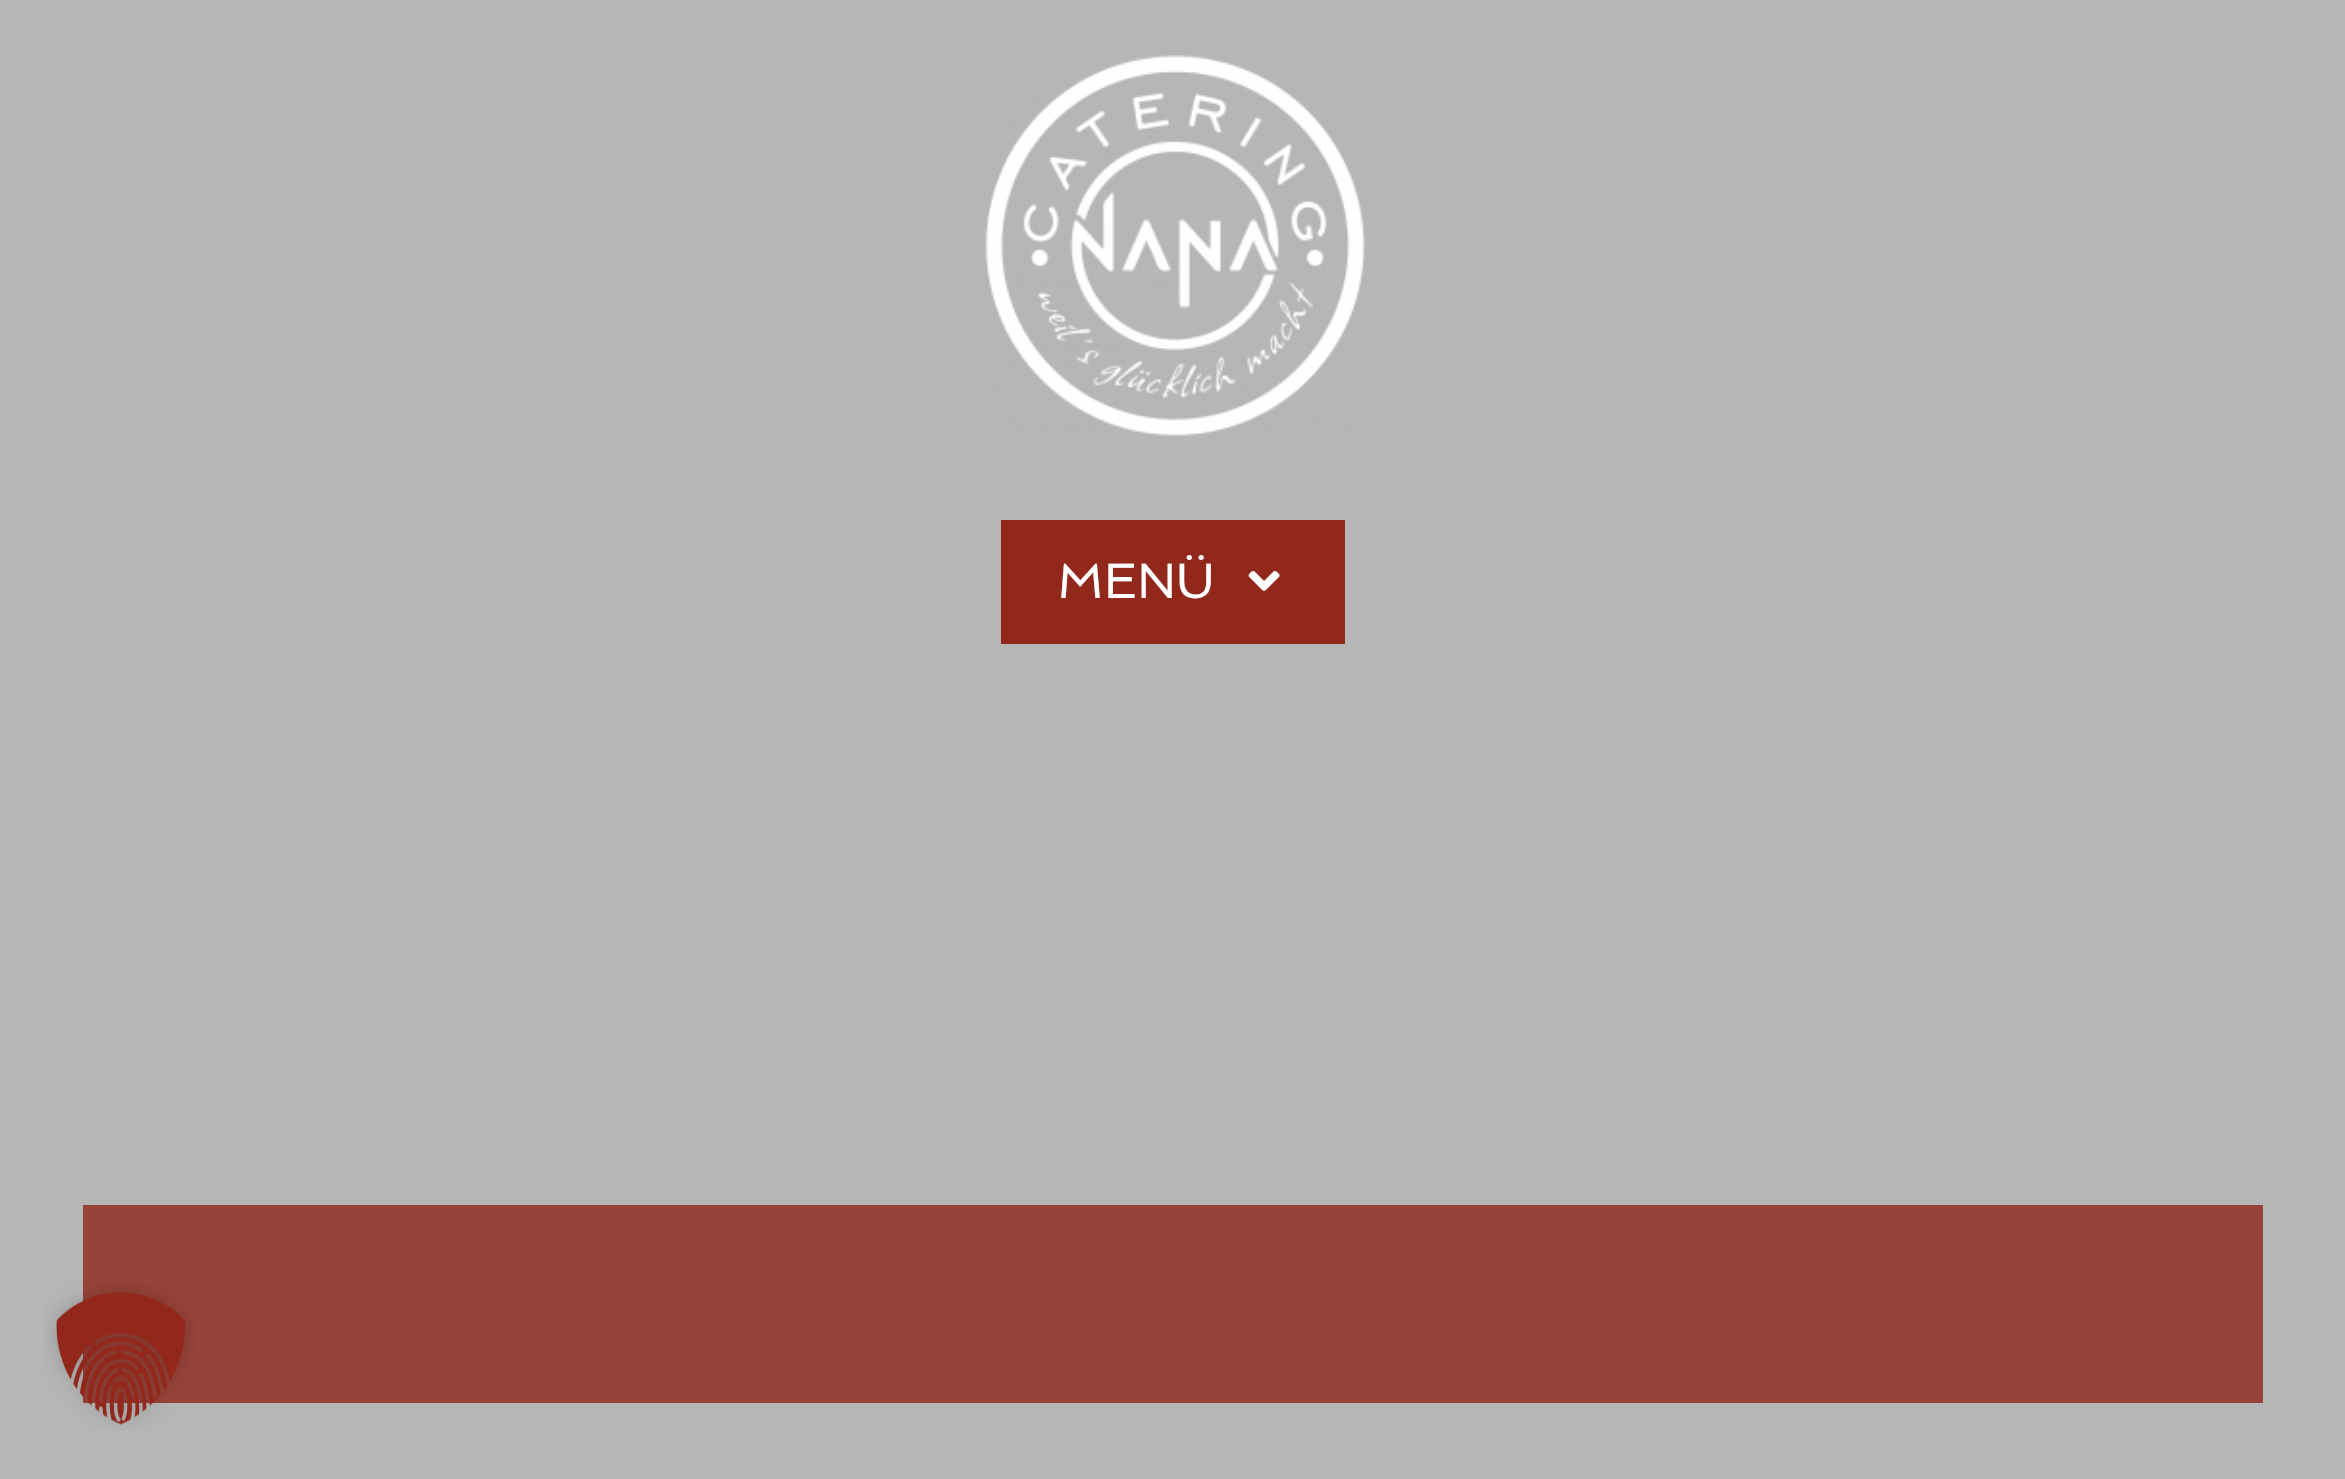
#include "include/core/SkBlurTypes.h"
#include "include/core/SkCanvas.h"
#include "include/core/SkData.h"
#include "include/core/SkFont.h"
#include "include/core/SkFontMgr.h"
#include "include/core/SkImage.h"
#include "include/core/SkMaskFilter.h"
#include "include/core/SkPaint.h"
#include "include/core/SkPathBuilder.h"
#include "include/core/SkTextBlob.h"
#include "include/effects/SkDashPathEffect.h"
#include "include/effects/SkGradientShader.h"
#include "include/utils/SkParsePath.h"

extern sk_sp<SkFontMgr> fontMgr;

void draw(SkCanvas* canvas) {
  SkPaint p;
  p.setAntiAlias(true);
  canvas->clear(SkColorSetRGB(182, 182, 182));
  canvas->drawImageRect(SkImages::DeferredFromEncodedData(SkData::MakeFromFileName("images/1.png")), SkRect::MakeLTRB(985, 55, 1366, 436), SkSamplingOptions());
  p.setColor(SkColorSetRGB(145, 40, 27));
  canvas->drawRect(SkRect::MakeLTRB(1001, 520, 1345, 644), p);
  canvas->drawImageRect(SkImages::DeferredFromEncodedData(SkData::MakeFromFileName("images/2.png")), SkRect::MakeLTRB(1248, 571, 1280, 591), SkSamplingOptions());
  p.setColor(SkColorSetRGB(152, 67, 57));
  canvas->drawRect(SkRect::MakeLTRB(83, 1205, 2263, 1403), p);
  canvas->drawImageRect(SkImages::DeferredFromEncodedData(SkData::MakeFromFileName("images/3.png")), SkRect::MakeLTRB(44, 1281, 196, 1430), SkSamplingOptions());
  SkFont font1(fontMgr->matchFamilyStyle("Spinnaker", SkFontStyle::Normal()), 49.5f);
  font1.setSubpixel(true);
  p.setColor(SK_ColorWHITE);
  canvas->drawString("MENÜ", 1057, 598, font1, p);
}
